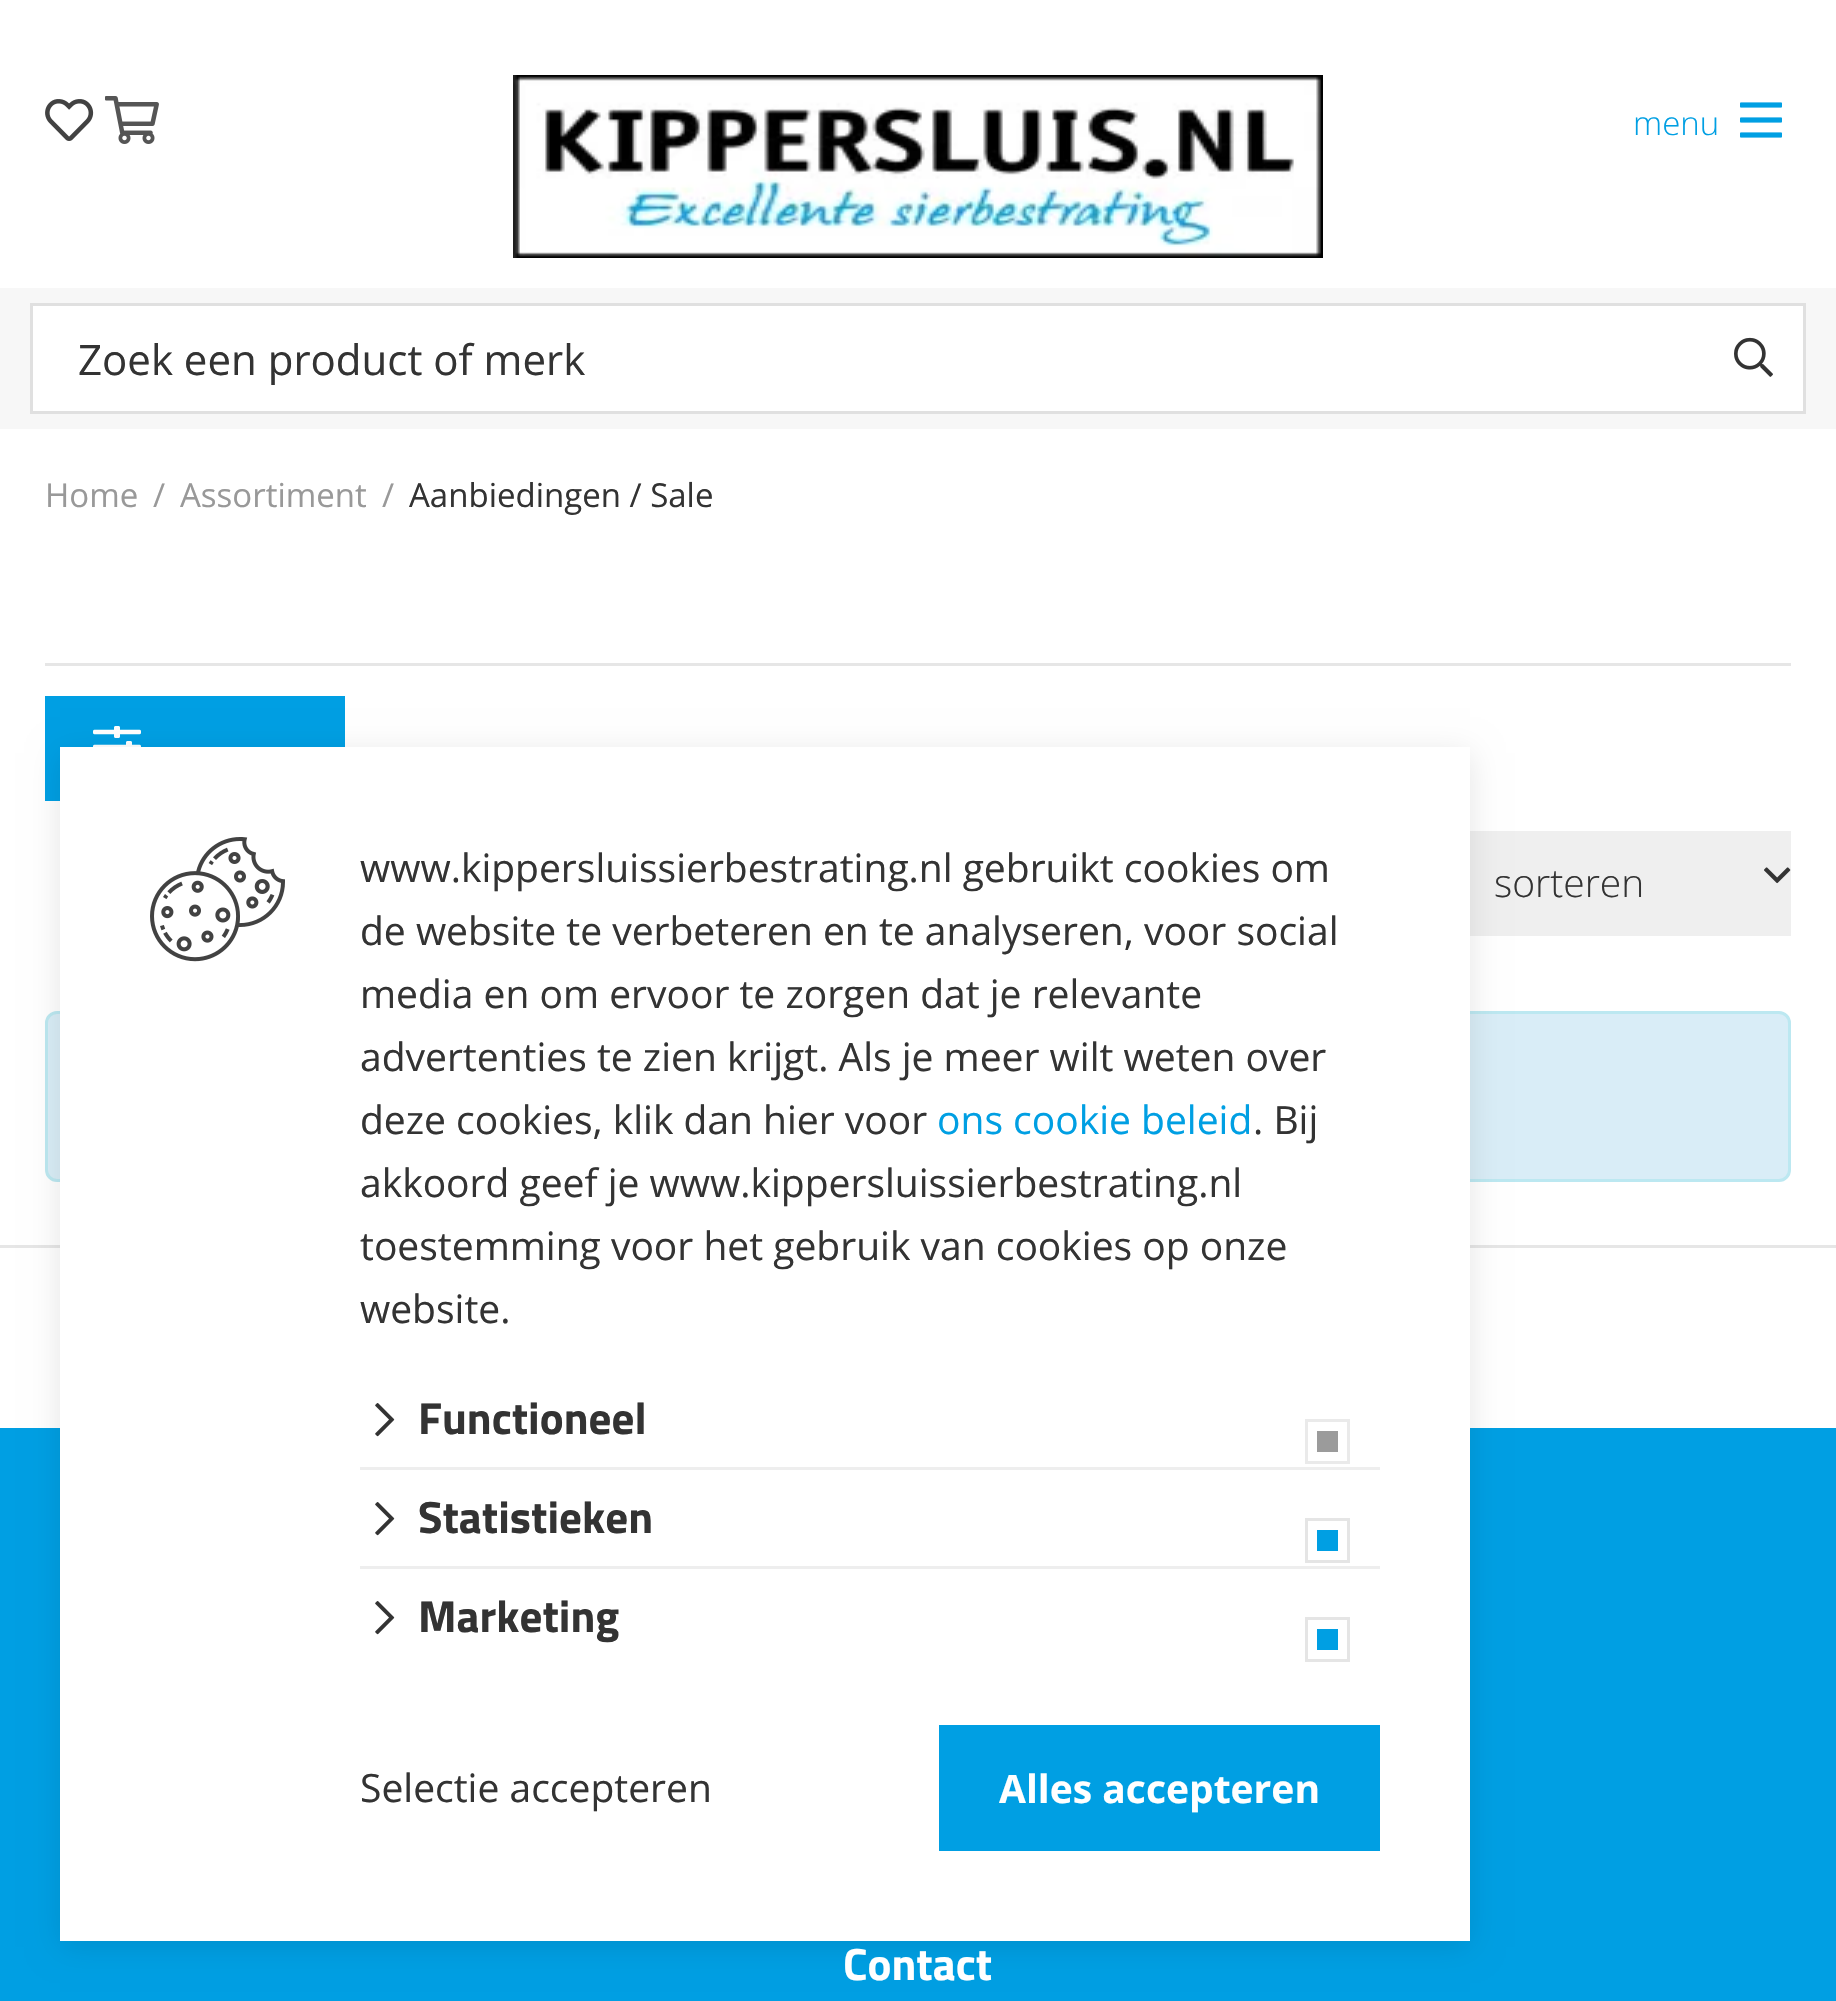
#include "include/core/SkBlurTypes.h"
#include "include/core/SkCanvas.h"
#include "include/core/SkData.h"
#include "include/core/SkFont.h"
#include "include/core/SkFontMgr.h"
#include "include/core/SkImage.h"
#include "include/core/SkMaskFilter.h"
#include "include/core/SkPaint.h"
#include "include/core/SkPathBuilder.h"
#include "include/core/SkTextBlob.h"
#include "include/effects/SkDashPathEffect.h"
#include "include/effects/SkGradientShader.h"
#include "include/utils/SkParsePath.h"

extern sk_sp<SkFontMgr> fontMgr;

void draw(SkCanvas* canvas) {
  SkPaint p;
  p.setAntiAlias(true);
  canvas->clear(SK_ColorWHITE);
  canvas->drawImageRect(SkImages::DeferredFromEncodedData(SkData::MakeFromFileName("images/1.png")), SkRect::MakeLTRB(45, 99, 94, 141), SkSamplingOptions());
  canvas->drawImageRect(SkImages::DeferredFromEncodedData(SkData::MakeFromFileName("images/2.png")), SkRect::MakeLTRB(105, 96, 159, 144), SkSamplingOptions());
  canvas->drawImageRect(SkImages::DeferredFromEncodedData(SkData::MakeFromFileName("images/3.png")), SkRect::MakeLTRB(513, 75, 1323, 258), SkSamplingOptions());
  canvas->drawImageRect(SkImages::DeferredFromEncodedData(SkData::MakeFromFileName("images/4.png")), SkRect::MakeLTRB(1740, 102, 1782, 138), SkSamplingOptions());
  p.setColor(SkColorSetRGB(247, 247, 247));
  canvas->drawRect(SkRect::MakeLTRB(0, 288, 1836, 429), p);
  p.setColor(SK_ColorWHITE);
  canvas->drawRect(SkRect::MakeLTRB(31.5f, 304.5f, 1804.5f, 412.5f), p);
  p.setStyle(SkPaint::kStroke_Style);
  p.setStrokeWidth(3);
  p.setColor(SkColorSetRGB(224, 224, 224));
  canvas->drawRect(SkRect::MakeLTRB(31.5f, 304.5f, 1804.5f, 412.5f), p);
  canvas->drawImageRect(SkImages::DeferredFromEncodedData(SkData::MakeFromFileName("images/5.png")), SkRect::MakeLTRB(1734, 337, 1773, 377), SkSamplingOptions());
  p.setStyle(SkPaint::kFill_Style);
  p.setColor(SkColorSetRGB(230, 230, 230));
  canvas->drawRect(SkRect::MakeLTRB(45, 663, 1791, 666), p);
  p.setColor(SkColorSetRGB(0, 159, 227));
  canvas->drawRect(SkRect::MakeLTRB(45, 696, 345, 801), p);
  canvas->drawImageRect(SkImages::DeferredFromEncodedData(SkData::MakeFromFileName("images/6.png")), SkRect::MakeLTRB(93, 726, 141, 747), SkSamplingOptions());
  p.setColor(SkColorSetRGB(239, 239, 239));
  canvas->drawRect(SkRect::MakeLTRB(1470, 831, 1791, 936), p);
  canvas->drawImageRect(SkImages::DeferredFromEncodedData(SkData::MakeFromFileName("images/7.png")), SkRect::MakeLTRB(1764, 867, 1791, 884), SkSamplingOptions());
  p.setColor(SkColorSetRGB(217, 237, 247));
  canvas->drawRoundRect(SkRect::MakeLTRB(46.5f, 1012.5f, 1789.5f, 1180.5f), 10.5f, 10.5f, p);
  p.setStyle(SkPaint::kStroke_Style);
  p.setColor(SkColorSetRGB(188, 232, 241));
  canvas->drawRoundRect(SkRect::MakeLTRB(46.5f, 1012.5f, 1789.5f, 1180.5f), 10.5f, 10.5f, p);
  p.setStyle(SkPaint::kFill_Style);
  p.setColor(SkColorSetRGB(230, 230, 230));
  canvas->drawRect(SkRect::MakeLTRB(0, 1245, 1836, 1248), p);
  p.setColor(SkColorSetRGB(0, 159, 227));
  canvas->drawRect(SkRect::MakeLTRB(0, 1428, 1836, 2001), p);
  p.setColor(SkColorSetARGB(26, 0, 0, 0));
  p.setMaskFilter(SkMaskFilter::MakeBlur(kNormal_SkBlurStyle, 15));
  canvas->drawRect(SkRect::MakeLTRB(60, 753, 1470, 1947), p);
  p.setMaskFilter(nullptr);
  p.setColor(SK_ColorWHITE);
  canvas->drawRect(SkRect::MakeLTRB(60, 747, 1470, 1941), p);
  canvas->drawImageRect(SkImages::DeferredFromEncodedData(SkData::MakeFromFileName("images/8.png")), SkRect::MakeLTRB(150, 837, 285, 962), SkSamplingOptions());
  canvas->drawImageRect(SkImages::DeferredFromEncodedData(SkData::MakeFromFileName("images/9.png")), SkRect::MakeLTRB(375, 1403, 395, 1437), SkSamplingOptions());
  p.setStyle(SkPaint::kStroke_Style);
  p.setColor(SkColorSetRGB(234, 234, 234));
  canvas->drawRect(SkRect::MakeLTRB(1306.5f, 1420.5f, 1348.5f, 1462.5f), p);
  p.setStyle(SkPaint::kFill_Style);
  p.setColor(SkColorSetRGB(155, 155, 155));
  canvas->drawRect(SkRect::MakeLTRB(1317, 1431, 1338, 1452), p);
  p.setColor(SkColorSetRGB(238, 238, 238));
  canvas->drawRect(SkRect::MakeLTRB(360, 1467, 1380, 1470), p);
  canvas->drawImageRect(SkImages::DeferredFromEncodedData(SkData::MakeFromFileName("images/9.png")), SkRect::MakeLTRB(375, 1502, 395, 1536), SkSamplingOptions());
  p.setStyle(SkPaint::kStroke_Style);
  p.setColor(SkColorSetRGB(229, 229, 229));
  canvas->drawRect(SkRect::MakeLTRB(1306.5f, 1519.5f, 1348.5f, 1561.5f), p);
  p.setStyle(SkPaint::kFill_Style);
  p.setColor(SkColorSetRGB(0, 159, 227));
  canvas->drawRect(SkRect::MakeLTRB(1317, 1530, 1338, 1551), p);
  p.setColor(SkColorSetRGB(238, 238, 238));
  canvas->drawRect(SkRect::MakeLTRB(360, 1566, 1380, 1569), p);
  canvas->drawImageRect(SkImages::DeferredFromEncodedData(SkData::MakeFromFileName("images/9.png")), SkRect::MakeLTRB(375, 1601, 395, 1635), SkSamplingOptions());
  p.setStyle(SkPaint::kStroke_Style);
  p.setColor(SkColorSetRGB(229, 229, 229));
  canvas->drawRect(SkRect::MakeLTRB(1306.5f, 1618.5f, 1348.5f, 1660.5f), p);
  p.setStyle(SkPaint::kFill_Style);
  p.setColor(SkColorSetRGB(0, 159, 227));
  canvas->drawRect(SkRect::MakeLTRB(1317, 1629, 1338, 1650), p);
  canvas->drawRect(SkRect::MakeLTRB(939, 1725, 1380, 1851), p);
  SkFont font1(fontMgr->matchFamilyStyle("Open Sans", SkFontStyle(300, SkFontStyle::kNormal_Width, SkFontStyle::kUpright_Slant)), 33);
  font1.setSubpixel(true);
  canvas->drawString("menu", 1633, 135, font1, p);
  SkFont font2(fontMgr->matchFamilyStyle("Open Sans", SkFontStyle::Normal()), 42);
  font2.setSubpixel(true);
  p.setColor(SkColorSetRGB(51, 51, 51));
  canvas->drawString("Zoek een product of merk", 78, 375, font2, p);
  SkFont font3(fontMgr->matchFamilyStyle("Open Sans", SkFontStyle::Normal()), 33);
  font3.setSubpixel(true);
  p.setColor(SkColorSetRGB(153, 153, 153));
  canvas->drawString("Home", 45, 507, font3, p);
  canvas->drawString("/", 153, 507, font3, p);
  canvas->drawString("Assortiment", 180, 507, font3, p);
  canvas->drawString("/", 382, 507, font3, p);
  p.setColor(SkColorSetRGB(51, 51, 51));
  canvas->drawString("Aanbiedingen / Sale", 409, 507, font3, p);
  SkFont font4(fontMgr->matchFamilyStyle("Open Sans", SkFontStyle(300, SkFontStyle::kNormal_Width, SkFontStyle::kUpright_Slant)), 39);
  font4.setSubpixel(true);
  canvas->drawString("sorteren", 1494, 897, font4, p);
  SkFont font5(fontMgr->matchFamilyStyle("Titillium Web", SkFontStyle::Bold()), 45);
  font5.setSubpixel(true);
  p.setColor(SK_ColorWHITE);
  canvas->drawString("Contact", 843, 1980, font5, p);
  SkFont font6(fontMgr->matchFamilyStyle("Open Sans", SkFontStyle::Normal()), 39);
  font6.setSubpixel(true);
  p.setColor(SkColorSetRGB(51, 51, 51));
  canvas->drawString("www.kippersluissierbestrating.nl gebruikt cookies om", 360, 882, font6, p);
  canvas->drawString("de website te verbeteren en te analyseren, voor social", 360, 945, font6, p);
  canvas->drawString("media en om ervoor te zorgen dat je relevante", 360, 1008, font6, p);
  canvas->drawString("advertenties te zien krijgt. Als je meer wilt weten over", 360, 1071, font6, p);
  canvas->drawString("deze cookies, klik dan hier voor", 360, 1134, font6, p);
  p.setColor(SkColorSetRGB(0, 159, 227));
  canvas->drawString("ons cookie beleid", 937, 1134, font6, p);
  p.setColor(SkColorSetRGB(51, 51, 51));
  canvas->drawString(". Bij", 1253, 1134, font6, p);
  canvas->drawString("akkoord geef je www.kippersluissierbestrating.nl", 360, 1197, font6, p);
  canvas->drawString("toestemming voor het gebruik van cookies op onze", 360, 1260, font6, p);
  canvas->drawString("website.", 360, 1323, font6, p);
  canvas->drawString("Functioneel", 418, 1434, font5, p);
  canvas->drawString("Statistieken", 418, 1533, font5, p);
  canvas->drawString("Marketing", 418, 1632, font5, p);
  canvas->drawString("Selectie accepteren", 360, 1802, font6, p);
  SkFont font7(fontMgr->matchFamilyStyle("Open Sans", SkFontStyle::Bold()), 39);
  font7.setSubpixel(true);
  p.setColor(SK_ColorWHITE);
  canvas->drawString("Alles accepteren", 999, 1803, font7, p);
}
